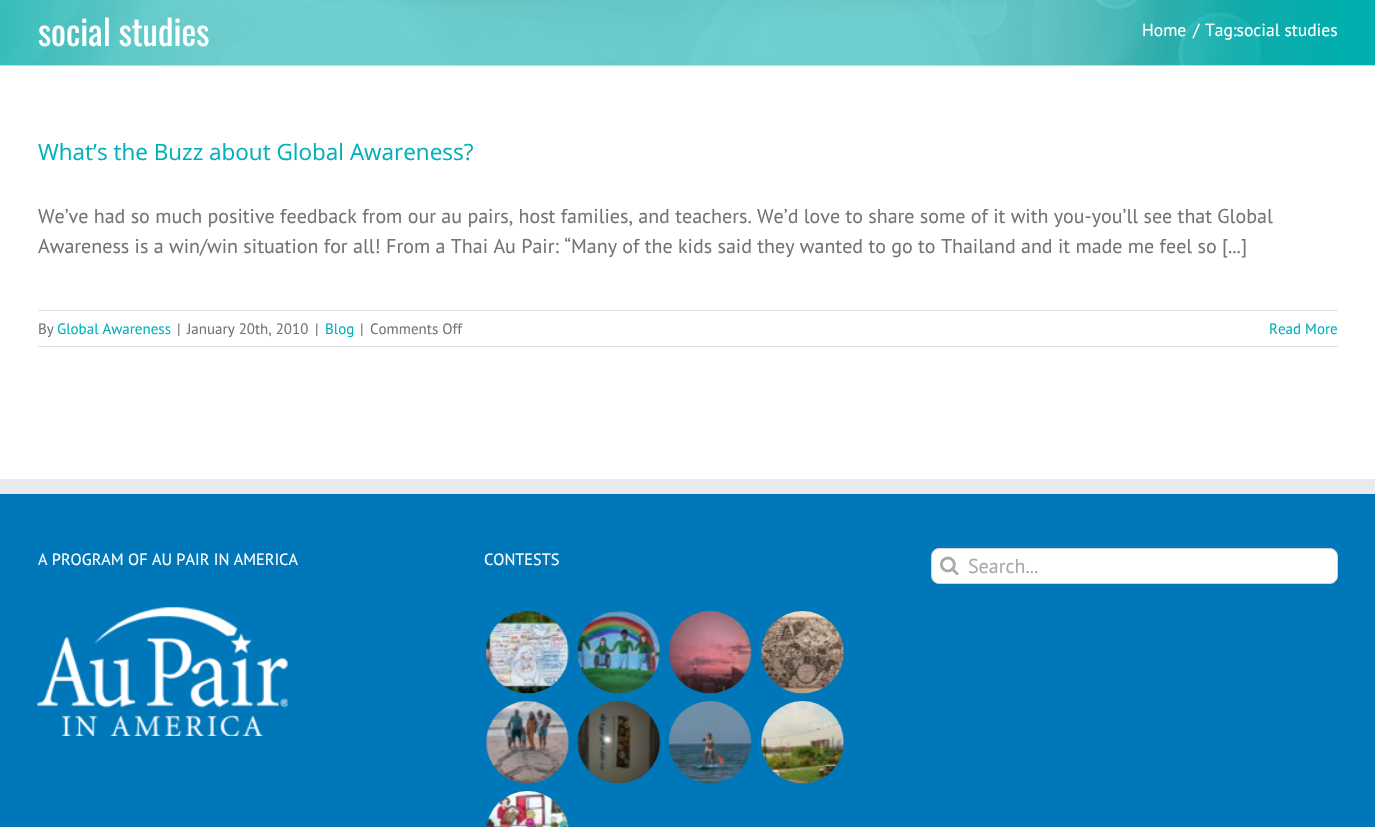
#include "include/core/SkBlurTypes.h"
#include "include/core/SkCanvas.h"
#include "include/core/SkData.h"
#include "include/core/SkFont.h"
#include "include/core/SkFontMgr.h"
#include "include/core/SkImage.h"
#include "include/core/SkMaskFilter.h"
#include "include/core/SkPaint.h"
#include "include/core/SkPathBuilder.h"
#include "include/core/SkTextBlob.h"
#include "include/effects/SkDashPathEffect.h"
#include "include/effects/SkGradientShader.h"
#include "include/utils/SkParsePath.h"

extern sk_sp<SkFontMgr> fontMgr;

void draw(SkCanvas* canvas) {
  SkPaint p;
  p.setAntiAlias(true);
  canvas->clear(SK_ColorWHITE);
  p.setColor(SkColorSetRGB(0, 176, 175));
  canvas->drawRect(SkRect::MakeLTRB(0, 0, 1375, 65), p);
  canvas->drawImageRect(SkImages::DeferredFromEncodedData(SkData::MakeFromFileName("images/1.png")), SkRect::MakeLTRB(0, 0, 1333, 65), SkSamplingOptions());
  p.setColor(SkColorSetRGB(210, 211, 212));
  canvas->drawRect(SkRect::MakeLTRB(0, 65, 1375, 66), p);
  p.setColor(SkColorSetRGB(224, 222, 222));
  canvas->drawRect(SkRect::MakeLTRB(38, 310, 1338, 311), p);
  canvas->drawRect(SkRect::MakeLTRB(38, 346, 1338, 347), p);
  p.setColor(SkColorSetRGB(0, 119, 185));
  canvas->drawRect(SkRect::MakeLTRB(0, 494, 1375, 827), p);
  p.setColor(SkColorSetRGB(233, 234, 238));
  canvas->drawRect(SkRect::MakeLTRB(0, 479, 1375, 494), p);
  canvas->drawImageRect(SkImages::DeferredFromEncodedData(SkData::MakeFromFileName("images/2.png")), SkRect::MakeLTRB(37, 607, 288, 736), SkSamplingOptions());
  canvas->drawImageRect(SkImages::DeferredFromEncodedData(SkData::MakeFromFileName("images/3.png")), SkRect::MakeLTRB(486, 611, 570, 694), SkSamplingOptions());
  canvas->drawImageRect(SkImages::DeferredFromEncodedData(SkData::MakeFromFileName("images/4.png")), SkRect::MakeLTRB(577, 611, 661, 694), SkSamplingOptions());
  canvas->drawImageRect(SkImages::DeferredFromEncodedData(SkData::MakeFromFileName("images/5.png")), SkRect::MakeLTRB(668, 611, 752, 694), SkSamplingOptions());
  canvas->drawImageRect(SkImages::DeferredFromEncodedData(SkData::MakeFromFileName("images/6.png")), SkRect::MakeLTRB(761, 611, 845, 694), SkSamplingOptions());
  canvas->drawImageRect(SkImages::DeferredFromEncodedData(SkData::MakeFromFileName("images/7.png")), SkRect::MakeLTRB(486, 701, 570, 784), SkSamplingOptions());
  canvas->drawImageRect(SkImages::DeferredFromEncodedData(SkData::MakeFromFileName("images/8.png")), SkRect::MakeLTRB(577, 701, 661, 784), SkSamplingOptions());
  canvas->drawImageRect(SkImages::DeferredFromEncodedData(SkData::MakeFromFileName("images/9.png")), SkRect::MakeLTRB(668, 701, 752, 784), SkSamplingOptions());
  canvas->drawImageRect(SkImages::DeferredFromEncodedData(SkData::MakeFromFileName("images/10.png")), SkRect::MakeLTRB(761, 701, 845, 784), SkSamplingOptions());
  canvas->drawImageRect(SkImages::DeferredFromEncodedData(SkData::MakeFromFileName("images/11.png")), SkRect::MakeLTRB(486, 791, 569, 827), SkSamplingOptions());
  p.setColor(SK_ColorWHITE);
  canvas->drawRoundRect(SkRect::MakeLTRB(931.5f, 548.5f, 1337.5f, 583.5f), 7.5f, 7.5f, p);
  p.setStyle(SkPaint::kStroke_Style);
  p.setStrokeWidth(1);
  p.setColor(SkColorSetRGB(210, 210, 210));
  canvas->drawRoundRect(SkRect::MakeLTRB(931.5f, 548.5f, 1337.5f, 583.5f), 7.5f, 7.5f, p);
  canvas->drawImageRect(SkImages::DeferredFromEncodedData(SkData::MakeFromFileName("images/12.png")), SkRect::MakeLTRB(940, 556, 959, 576), SkSamplingOptions());
  SkFont font1(fontMgr->matchFamilyStyle("Oswald", SkFontStyle::Normal()), 35);
  font1.setSubpixel(true);
  p.setStyle(SkPaint::kFill_Style);
  p.setColor(SK_ColorWHITE);
  canvas->drawString("social studies", 38, 46, font1, p);
  SkFont font2(fontMgr->matchFamilyStyle("PT Sans", SkFontStyle::Normal()), 17.5f);
  font2.setSubpixel(true);
  canvas->drawString("Home", 1142, 36, font2, p);
  canvas->drawString("/", 1193, 36, font2, p);
  canvas->drawString("Tag:social studies", 1205, 36, font2, p);
  SkFont font3(fontMgr->matchFamilyStyle("Open Sans", SkFontStyle::Normal()), 22.5f);
  font3.setSubpixel(true);
  p.setColor(SkColorSetRGB(0, 176, 186));
  canvas->drawString("What’s the Buzz about Global Awareness?", 38, 160, font3, p);
  SkFont font4(fontMgr->matchFamilyStyle("PT Sans", SkFontStyle::Normal()), 20);
  font4.setSubpixel(true);
  p.setColor(SkColorSetRGB(116, 116, 116));
  canvas->drawString("We’ve had so much positive feedback from our au pairs, host families, and teachers. We’d love to share some of it with you-you’ll see that Global", 38, 223, font4, p);
  canvas->drawString("Awareness is a win/win situation for all! From a Thai Au Pair: “Many of the kids said they wanted to go to Thailand and it made me feel so [...]", 38, 253, font4, p);
  SkFont font5(fontMgr->matchFamilyStyle("PT Sans", SkFontStyle::Normal()), 15);
  font5.setSubpixel(true);
  canvas->drawString("By", 38, 334, font5, p);
  p.setColor(SkColorSetRGB(0, 176, 186));
  canvas->drawString("Global Awareness", 57, 334, font5, p);
  p.setColor(SkColorSetRGB(116, 116, 116));
  canvas->drawString("|", 177, 334, font5, p);
  canvas->drawString("January 20th, 2010", 187, 334, font5, p);
  canvas->drawString("|", 315, 334, font5, p);
  p.setColor(SkColorSetRGB(0, 176, 186));
  canvas->drawString("Blog", 325, 334, font5, p);
  p.setColor(SkColorSetRGB(116, 116, 116));
  canvas->drawString("|", 360, 334, font5, p);
  canvas->drawString("Comments Off", 370, 334, font5, p);
  p.setColor(SkColorSetRGB(0, 176, 186));
  canvas->drawString("Read More", 1269, 334, font5, p);
  SkFont font6(fontMgr->matchFamilyStyle("PT Sans", SkFontStyle::Normal()), 16.25f);
  font6.setSubpixel(true);
  p.setColor(SK_ColorWHITE);
  canvas->drawString("A PROGRAM OF AU PAIR IN AMERICA", 38, 565, font6, p);
  canvas->drawString("CONTESTS", 484, 565, font6, p);
  p.setColor(SkColorSetRGB(170, 169, 169));
  canvas->drawString("Search...", 968, 573, font4, p);
}
